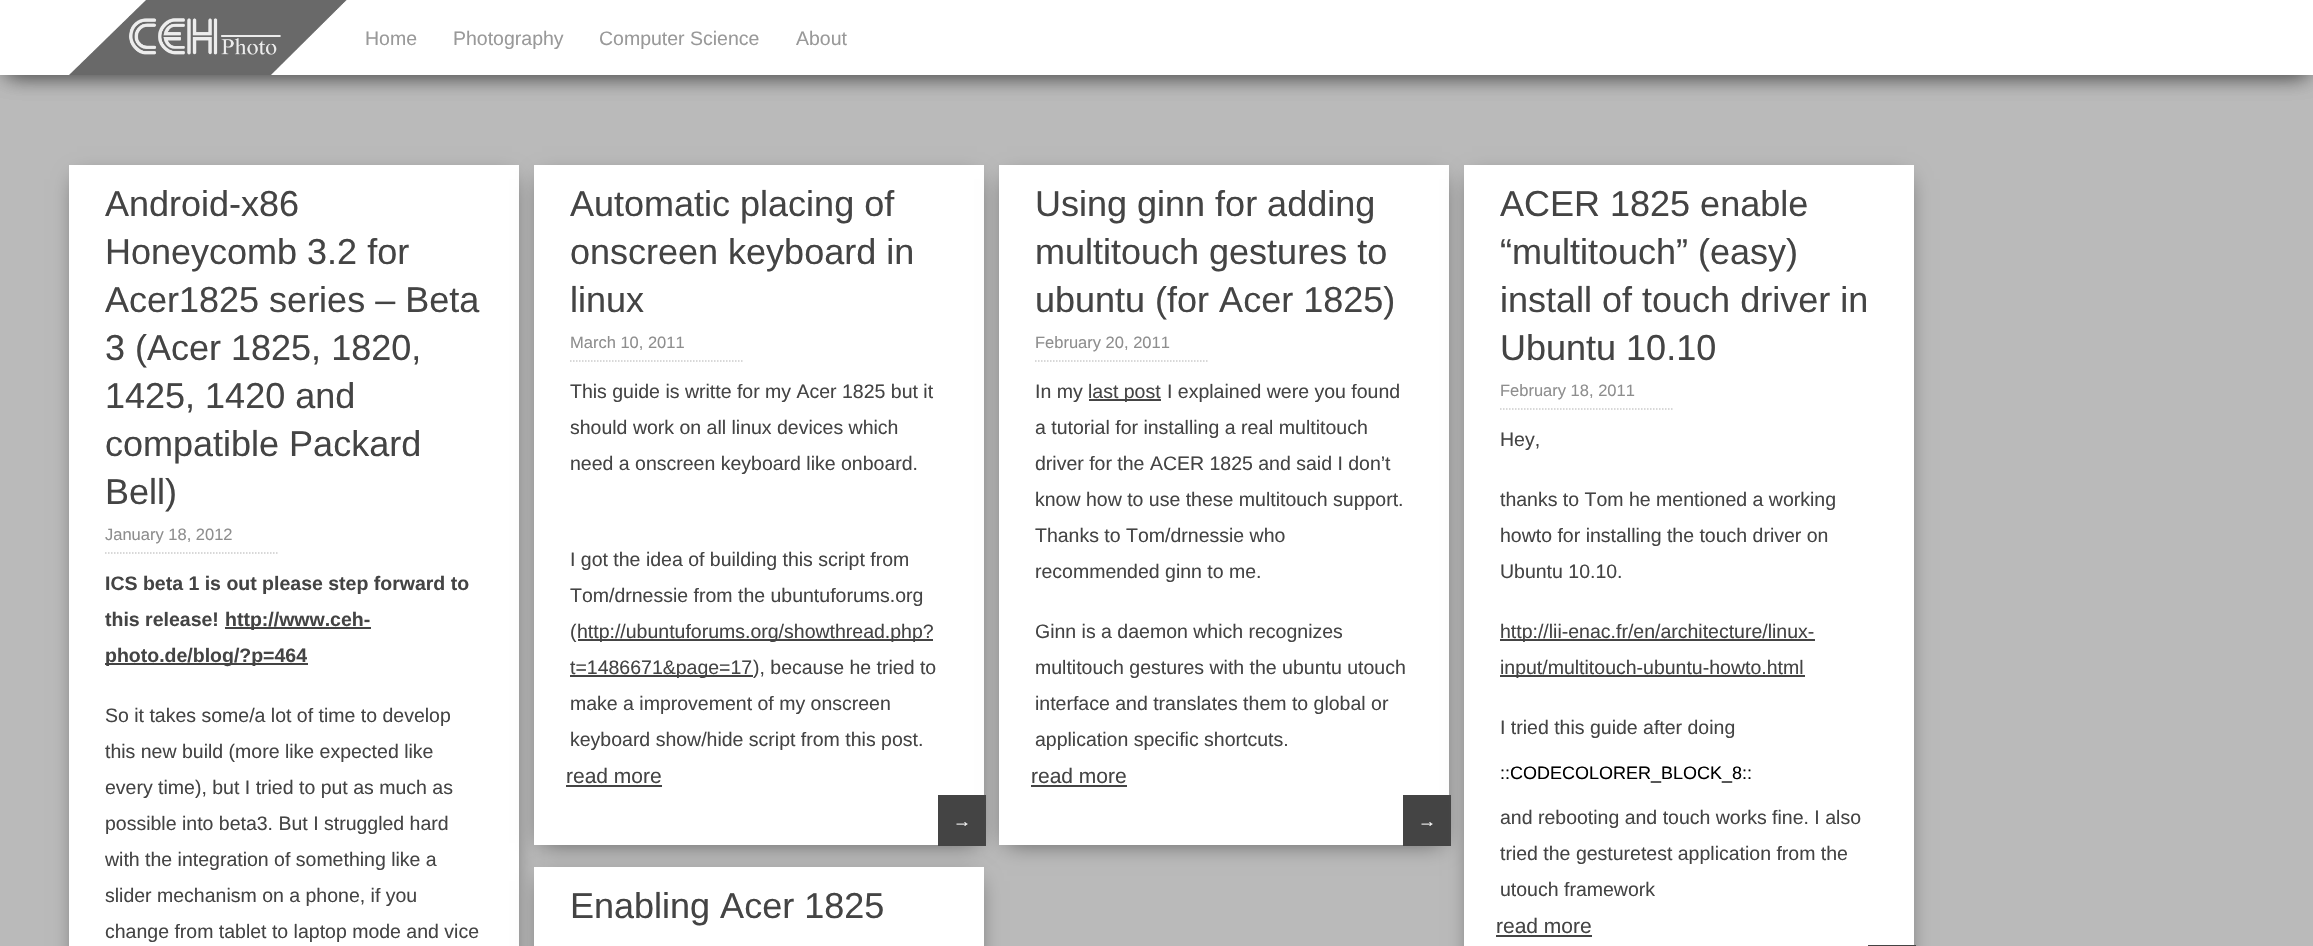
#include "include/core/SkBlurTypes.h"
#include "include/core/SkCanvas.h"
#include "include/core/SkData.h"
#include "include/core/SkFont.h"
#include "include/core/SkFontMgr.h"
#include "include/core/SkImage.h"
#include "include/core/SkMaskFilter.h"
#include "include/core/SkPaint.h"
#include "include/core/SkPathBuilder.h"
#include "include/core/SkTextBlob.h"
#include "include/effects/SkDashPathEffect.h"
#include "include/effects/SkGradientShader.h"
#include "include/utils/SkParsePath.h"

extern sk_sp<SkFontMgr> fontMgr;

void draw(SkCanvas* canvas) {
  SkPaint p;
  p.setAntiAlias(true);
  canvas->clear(SkColorSetRGB(186, 186, 186));
  p.setColor(SkColorSetRGB(85, 85, 85));
  p.setMaskFilter(SkMaskFilter::MakeBlur(kNormal_SkBlurStyle, 11));
  canvas->drawRect(SkRect::MakeLTRB(8, 14, 2306, 74), p);
  p.setMaskFilter(nullptr);
  p.setMaskFilter(SkMaskFilter::MakeBlur(kNormal_SkBlurStyle, 11));
  canvas->drawRect(SkRect::MakeLTRB(8, 14, 2306, 74), p);
  p.setMaskFilter(nullptr);
  p.setColor(SK_ColorWHITE);
  canvas->drawRect(SkRect::MakeLTRB(0, 0, 2313, 75), p);
  canvas->drawImageRect(SkImages::DeferredFromEncodedData(SkData::MakeFromFileName("images/1.png")), SkRect::MakeLTRB(69, 0, 347, 75), SkSamplingOptions());
  p.setColor(SkColorSetRGB(85, 85, 85));
  p.setMaskFilter(SkMaskFilter::MakeBlur(kNormal_SkBlurStyle, 11));
  canvas->drawRect(SkRect::MakeLTRB(77, 179, 512, 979), p);
  p.setMaskFilter(nullptr);
  p.setColor(SK_ColorWHITE);
  canvas->drawRect(SkRect::MakeLTRB(69, 165, 519, 946), p);
  p.setStyle(SkPaint::kStroke_Style);
  p.setStrokeWidth(1.5f);
  p.setColor(SkColorSetRGB(204, 204, 204));
  p.setPathEffect(SkDashPathEffect::Make({{1.5f, 1.5f}}, 0));
  canvas->drawPath(SkPathBuilder().moveTo(105, 553).lineTo(277.5f, 553).detach(), p);
  p.setPathEffect(nullptr);
  p.setStyle(SkPaint::kFill_Style);
  p.setColor(SkColorSetRGB(68, 68, 68));
  canvas->drawRect(SkRect::MakeLTRB(225, 627, 371, 629), p);
  canvas->drawRect(SkRect::MakeLTRB(105, 663, 308, 665), p);
  p.setColor(SkColorSetRGB(85, 85, 85));
  p.setMaskFilter(SkMaskFilter::MakeBlur(kNormal_SkBlurStyle, 11));
  canvas->drawRect(SkRect::MakeLTRB(542, 179, 977, 843), p);
  p.setMaskFilter(nullptr);
  p.setColor(SK_ColorWHITE);
  canvas->drawRect(SkRect::MakeLTRB(534, 165, 984, 845), p);
  p.setStyle(SkPaint::kStroke_Style);
  p.setColor(SkColorSetRGB(204, 204, 204));
  p.setPathEffect(SkDashPathEffect::Make({{1.5f, 1.5f}}, 0));
  canvas->drawPath(SkPathBuilder().moveTo(570, 361).lineTo(742.5f, 361).detach(), p);
  p.setPathEffect(nullptr);
  p.setStyle(SkPaint::kFill_Style);
  p.setColor(SkColorSetRGB(68, 68, 68));
  canvas->drawRect(SkRect::MakeLTRB(578, 639, 933, 641), p);
  canvas->drawRect(SkRect::MakeLTRB(570, 675, 753, 677), p);
  canvas->drawRect(SkRect::MakeLTRB(566, 785, 662, 787), p);
  canvas->drawRect(SkRect::MakeLTRB(938, 795, 986, 846), p);
  p.setColor(SkColorSetRGB(85, 85, 85));
  p.setMaskFilter(SkMaskFilter::MakeBlur(kNormal_SkBlurStyle, 11));
  canvas->drawRect(SkRect::MakeLTRB(1007, 179, 1442, 843), p);
  p.setMaskFilter(nullptr);
  p.setColor(SK_ColorWHITE);
  canvas->drawRect(SkRect::MakeLTRB(999, 165, 1449, 845), p);
  p.setStyle(SkPaint::kStroke_Style);
  p.setColor(SkColorSetRGB(204, 204, 204));
  p.setPathEffect(SkDashPathEffect::Make({{1.5f, 1.5f}}, 0));
  canvas->drawPath(SkPathBuilder().moveTo(1035, 361).lineTo(1207.5f, 361).detach(), p);
  p.setPathEffect(nullptr);
  p.setStyle(SkPaint::kFill_Style);
  p.setColor(SkColorSetRGB(68, 68, 68));
  canvas->drawRect(SkRect::MakeLTRB(1089, 399, 1161, 401), p);
  canvas->drawRect(SkRect::MakeLTRB(1031, 785, 1127, 787), p);
  canvas->drawRect(SkRect::MakeLTRB(1403, 795, 1451, 846), p);
  p.setColor(SkColorSetRGB(85, 85, 85));
  p.setMaskFilter(SkMaskFilter::MakeBlur(kNormal_SkBlurStyle, 11));
  canvas->drawRect(SkRect::MakeLTRB(1472, 179, 1907, 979), p);
  p.setMaskFilter(nullptr);
  p.setColor(SK_ColorWHITE);
  canvas->drawRect(SkRect::MakeLTRB(1464, 165, 1914, 946), p);
  p.setStyle(SkPaint::kStroke_Style);
  p.setColor(SkColorSetRGB(204, 204, 204));
  p.setPathEffect(SkDashPathEffect::Make({{1.5f, 1.5f}}, 0));
  canvas->drawPath(SkPathBuilder().moveTo(1500, 409).lineTo(1672.5f, 409).detach(), p);
  p.setPathEffect(nullptr);
  p.setStyle(SkPaint::kFill_Style);
  p.setColor(SkColorSetRGB(68, 68, 68));
  canvas->drawRect(SkRect::MakeLTRB(1500, 639, 1815, 641), p);
  canvas->drawRect(SkRect::MakeLTRB(1500, 675, 1805, 677), p);
  canvas->drawRect(SkRect::MakeLTRB(1496, 935, 1592, 937), p);
  canvas->drawRect(SkRect::MakeLTRB(1868, 945, 1916, 946), p);
  p.setColor(SkColorSetRGB(85, 85, 85));
  p.setMaskFilter(SkMaskFilter::MakeBlur(kNormal_SkBlurStyle, 11));
  canvas->drawRect(SkRect::MakeLTRB(542, 881, 977, 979), p);
  p.setMaskFilter(nullptr);
  p.setColor(SK_ColorWHITE);
  canvas->drawRect(SkRect::MakeLTRB(534, 867, 984, 946), p);
  SkFont font1(fontMgr->matchFamilyStyle("Liberation Sans", SkFontStyle::Normal()), 19.5f);
  font1.setSubpixel(true);
  p.setColor(SkColorSetRGB(153, 153, 153));
  canvas->drawString("Home", 365, 45, font1, p);
  canvas->drawString("Photography", 453, 45, font1, p);
  canvas->drawString("Computer Science", 599, 45, font1, p);
  canvas->drawString("About", 796, 45, font1, p);
  SkFont font2(fontMgr->matchFamilyStyle("Liberation Sans", SkFontStyle::Normal()), 36);
  font2.setSubpixel(true);
  p.setColor(SkColorSetRGB(68, 68, 68));
  canvas->drawString("Android-x86", 105, 216, font2, p);
  canvas->drawString("Honeycomb 3.2 for", 105, 264, font2, p);
  canvas->drawString("Acer1825 series – Beta", 105, 312, font2, p);
  canvas->drawString("3 (Acer 1825, 1820,", 105, 360, font2, p);
  canvas->drawString("1425, 1420 and", 105, 408, font2, p);
  canvas->drawString("compatible Packard", 105, 456, font2, p);
  canvas->drawString("Bell)", 105, 504, font2, p);
  SkFont font3(fontMgr->matchFamilyStyle("Liberation Sans", SkFontStyle::Normal()), 16.5f);
  font3.setSubpixel(true);
  p.setColor(SkColorSetRGB(142, 142, 142));
  canvas->drawString("January 18, 2012", 105, 540, font3, p);
  SkFont font4(fontMgr->matchFamilyStyle("Liberation Sans", SkFontStyle::Bold()), 19.5f);
  font4.setSubpixel(true);
  p.setColor(SkColorSetRGB(68, 68, 68));
  canvas->drawString("ICS beta 1 is out please step forward to", 105, 590, font4, p);
  canvas->drawString("this release!", 105, 626, font4, p);
  canvas->drawString("http://www.ceh-", 225, 626, font4, p);
  canvas->drawString("photo.de/blog/?p=464", 105, 662, font4, p);
  canvas->drawString("So it takes some/a lot of time to develop", 105, 722, font1, p);
  canvas->drawString("this new build (more like expected like", 105, 758, font1, p);
  canvas->drawString("every time), but I tried to put as much as", 105, 794, font1, p);
  canvas->drawString("possible into beta3. But I struggled hard", 105, 830, font1, p);
  canvas->drawString("with the integration of something like a", 105, 866, font1, p);
  canvas->drawString("slider mechanism on a phone, if you", 105, 902, font1, p);
  canvas->drawString("change from tablet to laptop mode and vice", 105, 938, font1, p);
  canvas->drawString("Automatic placing of", 570, 216, font2, p);
  canvas->drawString("onscreen keyboard in", 570, 264, font2, p);
  canvas->drawString("linux", 570, 312, font2, p);
  p.setColor(SkColorSetRGB(142, 142, 142));
  canvas->drawString("March 10, 2011", 570, 348, font3, p);
  p.setColor(SkColorSetRGB(68, 68, 68));
  canvas->drawString("This guide is writte for my Acer 1825 but it", 570, 398, font1, p);
  canvas->drawString("should work on all linux devices which", 570, 434, font1, p);
  canvas->drawString("need a onscreen keyboard like onboard.", 570, 470, font1, p);
  canvas->drawString("I got the idea of building this script from", 570, 566, font1, p);
  canvas->drawString("Tom/drnessie from the ubuntuforums.org", 570, 602, font1, p);
  canvas->drawString("(", 570, 638, font1, p);
  canvas->drawString("http://ubuntuforums.org/showthread.php?", 577, 638, font1, p);
  canvas->drawString("t=1486671&page=17", 570, 674, font1, p);
  canvas->drawString("), because he tried to", 753, 674, font1, p);
  canvas->drawString("make a improvement of my onscreen", 570, 710, font1, p);
  canvas->drawString("keyboard show/hide script from this post.", 570, 746, font1, p);
  SkFont font5(fontMgr->matchFamilyStyle("Liberation Sans", SkFontStyle::Normal()), 21);
  font5.setSubpixel(true);
  canvas->drawString("read more", 566, 783, font5, p);
  SkFont font6(fontMgr->matchFamilyStyle("Liberation Sans", SkFontStyle::Normal()), 18);
  font6.setSubpixel(true);
  p.setColor(SkColorSetRGB(250, 250, 250));
  canvas->drawString("→", 953, 827, font6, p);
  p.setColor(SkColorSetRGB(68, 68, 68));
  canvas->drawString("Using ginn for adding", 1035, 216, font2, p);
  canvas->drawString("multitouch gestures to", 1035, 264, font2, p);
  canvas->drawString("ubuntu (for Acer 1825)", 1035, 312, font2, p);
  p.setColor(SkColorSetRGB(142, 142, 142));
  canvas->drawString("February 20, 2011", 1035, 348, font3, p);
  p.setColor(SkColorSetRGB(68, 68, 68));
  canvas->drawString("In my", 1035, 398, font1, p);
  canvas->drawString("last post", 1088, 398, font1, p);
  canvas->drawString("I explained were you found", 1167, 398, font1, p);
  canvas->drawString("a tutorial for installing a real multitouch", 1035, 434, font1, p);
  canvas->drawString("driver for the ACER 1825 and said I don’t", 1035, 470, font1, p);
  canvas->drawString("know how to use these multitouch support.", 1035, 506, font1, p);
  canvas->drawString("Thanks to Tom/drnessie who", 1035, 542, font1, p);
  canvas->drawString("recommended ginn to me.", 1035, 578, font1, p);
  canvas->drawString("Ginn is a daemon which recognizes", 1035, 638, font1, p);
  canvas->drawString("multitouch gestures with the ubuntu utouch", 1035, 674, font1, p);
  canvas->drawString("interface and translates them to global or", 1035, 710, font1, p);
  canvas->drawString("application specific shortcuts.", 1035, 746, font1, p);
  canvas->drawString("read more", 1031, 783, font5, p);
  p.setColor(SkColorSetRGB(250, 250, 250));
  canvas->drawString("→", 1418, 827, font6, p);
  p.setColor(SkColorSetRGB(68, 68, 68));
  canvas->drawString("ACER 1825 enable", 1500, 216, font2, p);
  canvas->drawString("“multitouch” (easy)", 1500, 264, font2, p);
  canvas->drawString("install of touch driver in", 1500, 312, font2, p);
  canvas->drawString("Ubuntu 10.10", 1500, 360, font2, p);
  p.setColor(SkColorSetRGB(142, 142, 142));
  canvas->drawString("February 18, 2011", 1500, 396, font3, p);
  p.setColor(SkColorSetRGB(68, 68, 68));
  canvas->drawString("Hey,", 1500, 446, font1, p);
  canvas->drawString("thanks to Tom he mentioned a working", 1500, 506, font1, p);
  canvas->drawString("howto for installing the touch driver on", 1500, 542, font1, p);
  canvas->drawString("Ubuntu 10.10.", 1500, 578, font1, p);
  canvas->drawString("http://lii-enac.fr/en/architecture/linux-", 1500, 638, font1, p);
  canvas->drawString("input/multitouch-ubuntu-howto.html", 1500, 674, font1, p);
  canvas->drawString("I tried this guide after doing", 1500, 734, font1, p);
  p.setColor(SK_ColorBLACK);
  canvas->drawString("::CODECOLORER_BLOCK_8::", 1500, 779, font6, p);
  p.setColor(SkColorSetRGB(68, 68, 68));
  canvas->drawString("and rebooting and touch works fine. I also", 1500, 824, font1, p);
  canvas->drawString("tried the gesturetest application from the", 1500, 860, font1, p);
  canvas->drawString("utouch framework", 1500, 896, font1, p);
  canvas->drawString("read more", 1496, 933, font5, p);
  canvas->drawString("Enabling Acer 1825", 570, 918, font2, p);
}
